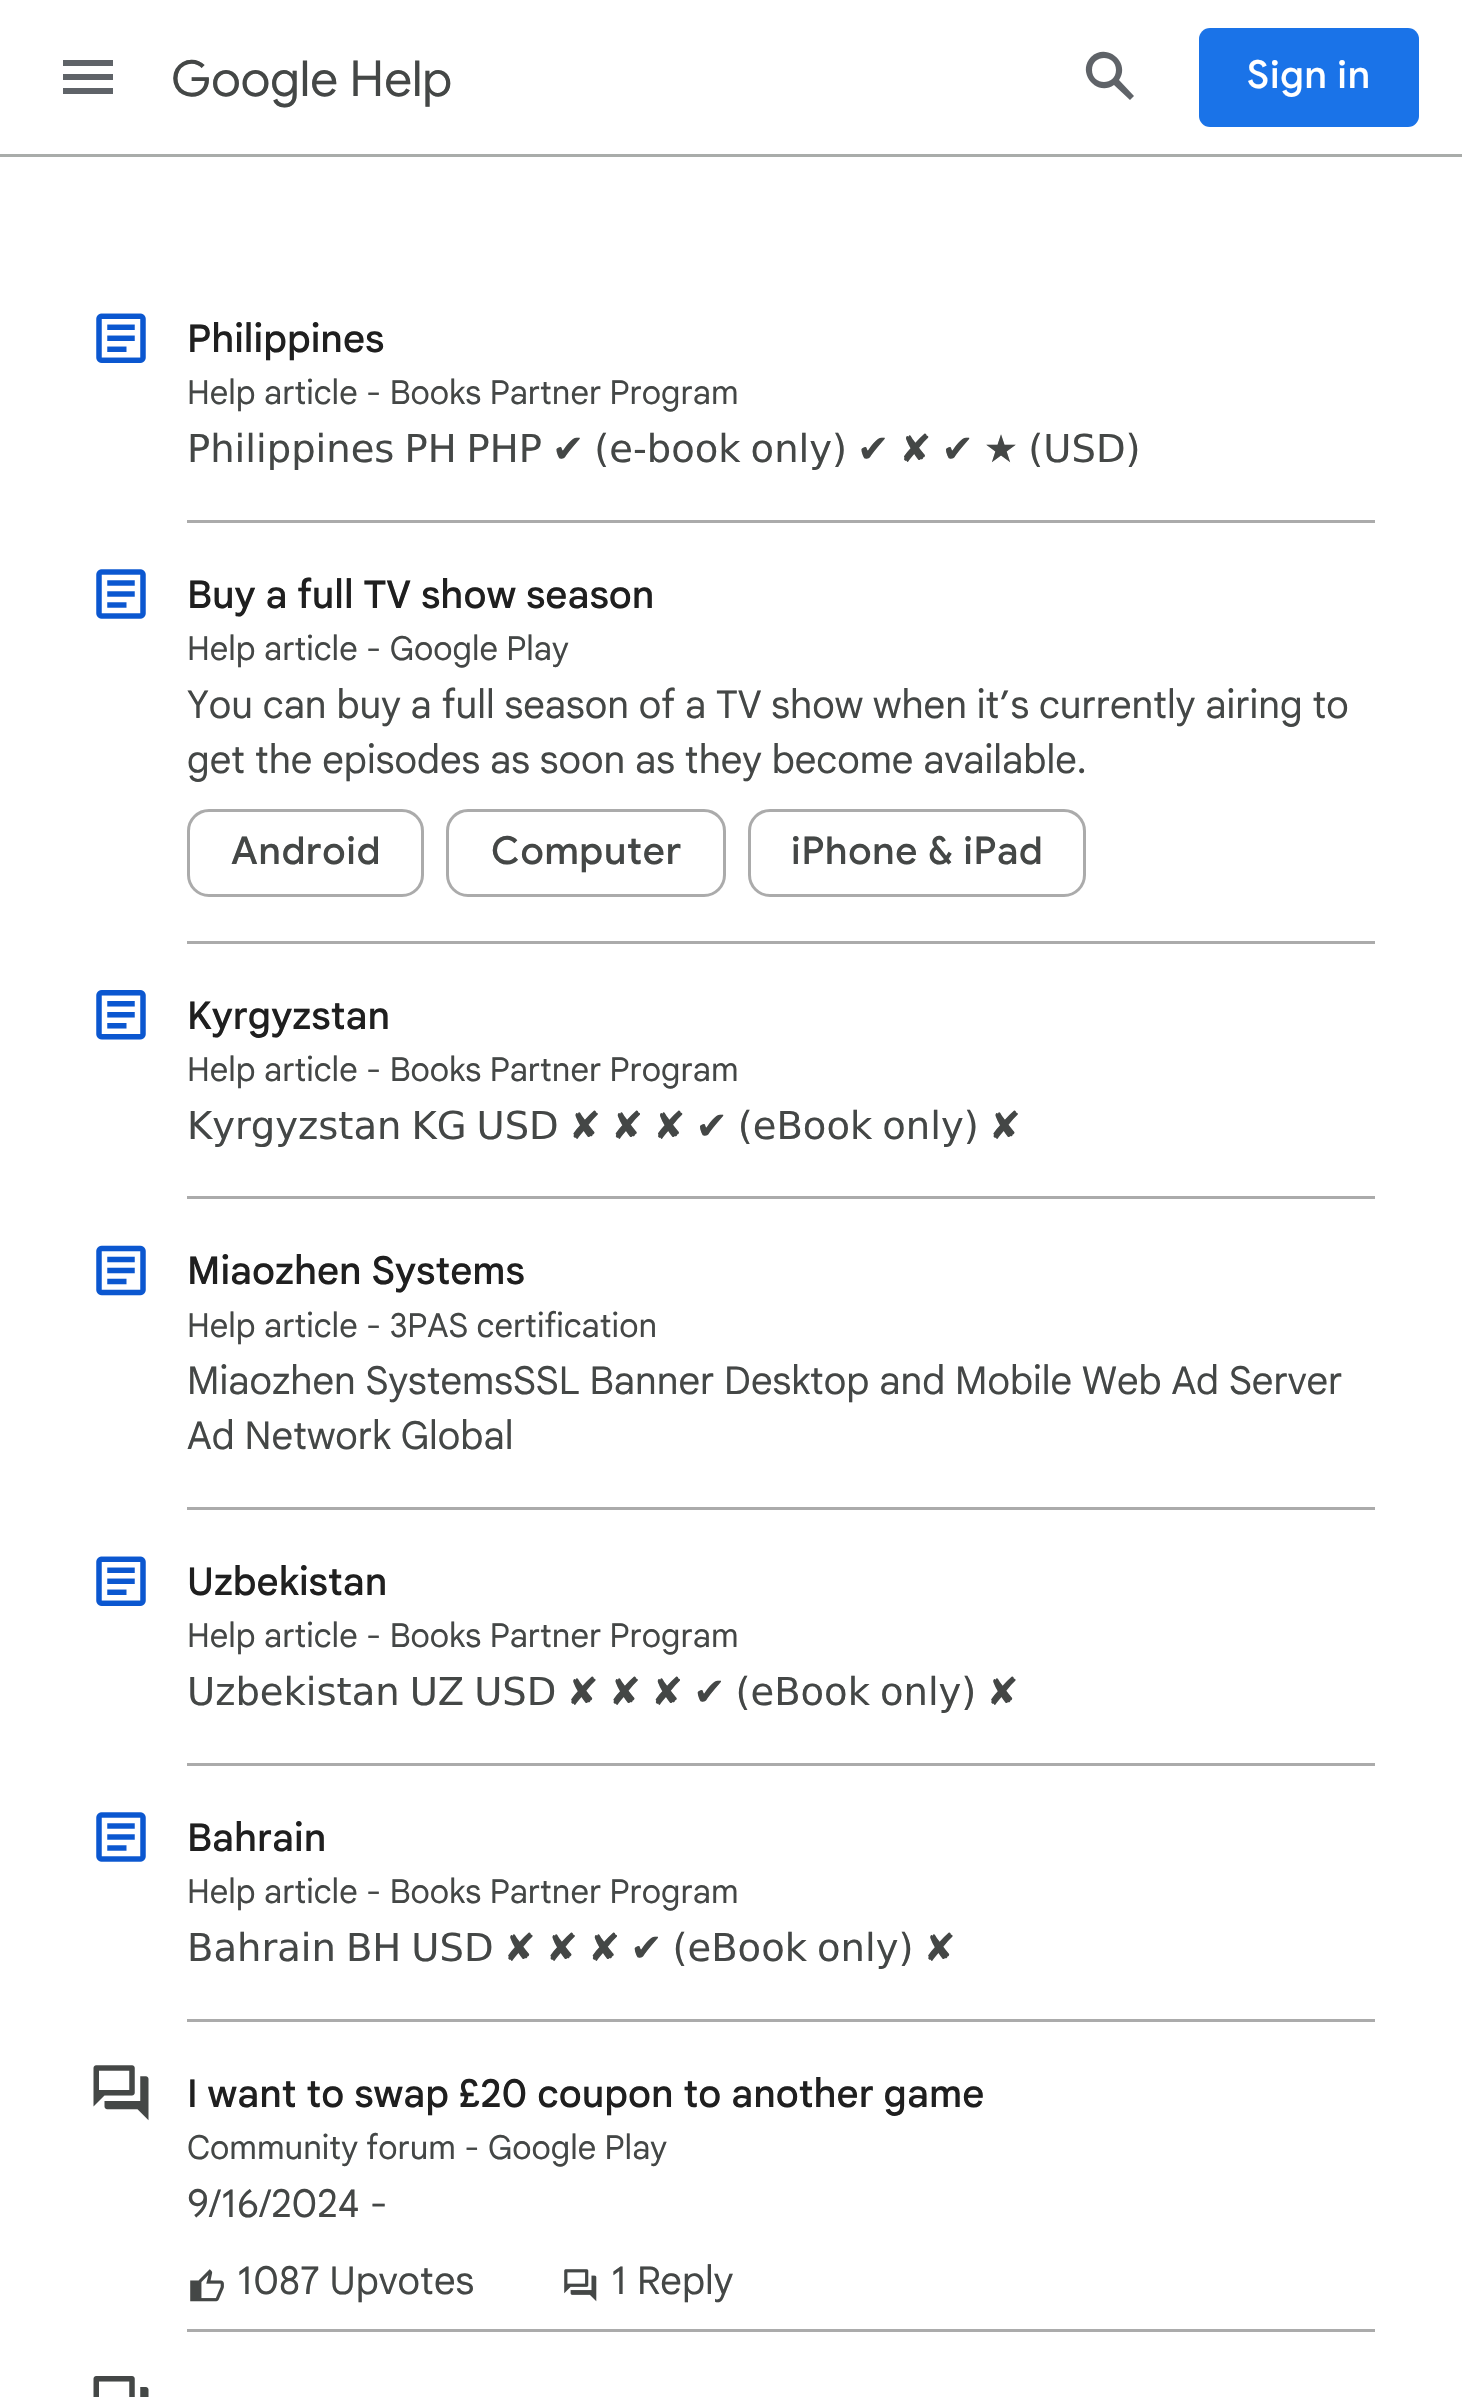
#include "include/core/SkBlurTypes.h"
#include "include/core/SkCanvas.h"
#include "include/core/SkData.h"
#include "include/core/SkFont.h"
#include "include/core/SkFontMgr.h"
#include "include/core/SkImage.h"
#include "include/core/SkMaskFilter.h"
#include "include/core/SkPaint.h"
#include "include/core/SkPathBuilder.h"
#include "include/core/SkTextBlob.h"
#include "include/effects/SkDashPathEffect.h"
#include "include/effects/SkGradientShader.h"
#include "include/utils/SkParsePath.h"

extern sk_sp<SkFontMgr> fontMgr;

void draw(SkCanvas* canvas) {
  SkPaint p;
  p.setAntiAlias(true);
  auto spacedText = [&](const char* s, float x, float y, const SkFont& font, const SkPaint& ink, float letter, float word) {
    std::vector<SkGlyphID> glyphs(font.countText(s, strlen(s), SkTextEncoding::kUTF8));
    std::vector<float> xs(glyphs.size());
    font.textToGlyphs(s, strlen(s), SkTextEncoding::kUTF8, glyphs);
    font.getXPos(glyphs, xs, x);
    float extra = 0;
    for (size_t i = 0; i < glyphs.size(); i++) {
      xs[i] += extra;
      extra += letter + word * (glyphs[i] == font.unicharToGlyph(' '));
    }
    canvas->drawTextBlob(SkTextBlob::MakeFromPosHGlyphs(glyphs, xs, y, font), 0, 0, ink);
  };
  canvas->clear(SK_ColorWHITE);
  p.setColor(SkColorSetRGB(95, 99, 104));
  canvas->drawPath(SkPathBuilder().moveTo(63, 94).lineTo(113, 94).lineTo(113, 88).lineTo(63, 88).close().moveTo(63, 80).lineTo(113, 80).lineTo(113, 74).lineTo(63, 74).close().moveTo(63, 60).lineTo(63, 66).lineTo(113, 66).lineTo(113, 60).close().detach(), p);
  canvas->drawPath(SkPathBuilder().moveTo(1134, 96).lineTo(1119, 80).cubicTo(1131, 63, 1107, 42, 1091, 57).cubicTo(1076, 73, 1097, 97, 1114, 85).lineTo(1130, 100).close().moveTo(1092, 70).cubicTo(1092, 54, 1116, 54, 1116, 70).cubicTo(1116, 86, 1092, 86, 1092, 70).close().detach(), p);
  p.setColor(SkColorSetRGB(26, 115, 232));
  canvas->drawRoundRect(SkRect::MakeLTRB(1199, 28, 1419, 127), 11, 11, p);
  p.setColor(SkColorSetRGB(169, 172, 170));
  canvas->drawRect(SkRect::MakeLTRB(0, 154, 1462, 157), p);
  canvas->drawImageRect(SkImages::DeferredFromEncodedData(SkData::MakeFromFileName("images/1.png")), SkRect::MakeLTRB(96, 313, 146, 363), SkSamplingOptions());
  p.setColor(SkColorSetRGB(171, 171, 171));
  canvas->drawRect(SkRect::MakeLTRB(187, 520, 1375, 523), p);
  canvas->drawImageRect(SkImages::DeferredFromEncodedData(SkData::MakeFromFileName("images/2.png")), SkRect::MakeLTRB(96, 569, 146, 619), SkSamplingOptions());
  p.setStyle(SkPaint::kStroke_Style);
  p.setStrokeWidth(3);
  canvas->drawRoundRect(SkRect::MakeLTRB(188.5f, 810.5f, 422.5f, 895.5f), 20.5f, 20.5f, p);
  canvas->drawRoundRect(SkRect::MakeLTRB(447.5f, 810.5f, 724.5f, 895.5f), 20.5f, 20.5f, p);
  canvas->drawRoundRect(SkRect::MakeLTRB(749.5f, 810.5f, 1084.5f, 895.5f), 20.5f, 20.5f, p);
  p.setStyle(SkPaint::kFill_Style);
  canvas->drawRect(SkRect::MakeLTRB(187, 941, 1375, 944), p);
  canvas->drawImageRect(SkImages::DeferredFromEncodedData(SkData::MakeFromFileName("images/3.png")), SkRect::MakeLTRB(96, 990, 146, 1040), SkSamplingOptions());
  canvas->drawRect(SkRect::MakeLTRB(187, 1196, 1375, 1199), p);
  canvas->drawImageRect(SkImages::DeferredFromEncodedData(SkData::MakeFromFileName("images/4.png")), SkRect::MakeLTRB(96, 1245, 146, 1296), SkSamplingOptions());
  canvas->drawRect(SkRect::MakeLTRB(187, 1507, 1375, 1510), p);
  canvas->drawImageRect(SkImages::DeferredFromEncodedData(SkData::MakeFromFileName("images/1.png")), SkRect::MakeLTRB(96, 1556, 146, 1606), SkSamplingOptions());
  canvas->drawRect(SkRect::MakeLTRB(187, 1763, 1375, 1766), p);
  canvas->drawImageRect(SkImages::DeferredFromEncodedData(SkData::MakeFromFileName("images/2.png")), SkRect::MakeLTRB(96, 1812, 146, 1862), SkSamplingOptions());
  canvas->drawRect(SkRect::MakeLTRB(187, 2019, 1375, 2022), p);
  canvas->drawImageRect(SkImages::DeferredFromEncodedData(SkData::MakeFromFileName("images/5.png")), SkRect::MakeLTRB(93, 2065, 149, 2121), SkSamplingOptions());
  canvas->drawImageRect(SkImages::DeferredFromEncodedData(SkData::MakeFromFileName("images/6.png")), SkRect::MakeLTRB(190, 2269, 224, 2302), SkSamplingOptions());
  canvas->drawImageRect(SkImages::DeferredFromEncodedData(SkData::MakeFromFileName("images/7.png")), SkRect::MakeLTRB(564, 2269, 597, 2302), SkSamplingOptions());
  canvas->drawRect(SkRect::MakeLTRB(187, 2329, 1375, 2332), p);
  canvas->drawImageRect(SkImages::DeferredFromEncodedData(SkData::MakeFromFileName("images/8.png")), SkRect::MakeLTRB(93, 2376, 149, 2397), SkSamplingOptions());
  SkFont font1(fontMgr->matchFamilyStyle("Google Sans", SkFontStyle::Normal()), 49.5f);
  font1.setSubpixel(true);
  p.setColor(SkColorSetRGB(68, 71, 70));
  canvas->drawString("Google Help", 171, 96, font1, p);
  SkFont font2(fontMgr->matchFamilyStyle("Google Sans", SkFontStyle(500, SkFontStyle::kNormal_Width, SkFontStyle::kUpright_Slant)), 38.5f);
  font2.setSubpixel(true);
  p.setColor(SK_ColorWHITE);
  spacedText("Sign in", 1247, 88, font2, p, 0.75f, 0);
  SkFont font3(fontMgr->matchFamilyStyle("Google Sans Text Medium", SkFontStyle(500, SkFontStyle::kNormal_Width, SkFontStyle::kUpright_Slant)), 38.5f);
  font3.setSubpixel(true);
  p.setColor(SkColorSetRGB(31, 31, 31));
  canvas->drawString("Philippines", 187, 352, font3, p);
  SkFont font4(fontMgr->matchFamilyStyle("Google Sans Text", SkFontStyle::Normal()), 33);
  font4.setSubpixel(true);
  p.setColor(SkColorSetRGB(68, 71, 70));
  canvas->drawString("Help article - Books Partner Program", 187, 404, font4, p);
  SkFont font5(fontMgr->matchFamilyStyle("DejaVu Sans", SkFontStyle::Normal()), 38.5f);
  font5.setSubpixel(true);
  spacedText("Philippines PH PHP ✔ (e-book only) ✔ ✘ ✔ ★ (USD)", 187, 462, font5, p, 0, -2.25f);
  p.setColor(SkColorSetRGB(31, 31, 31));
  canvas->drawString("Buy a full TV show season", 187, 608, font3, p);
  p.setColor(SkColorSetRGB(68, 71, 70));
  canvas->drawString("Help article - Google Play", 187, 660, font4, p);
  SkFont font6(fontMgr->matchFamilyStyle("Google Sans Text", SkFontStyle::Normal()), 38.5f);
  font6.setSubpixel(true);
  canvas->drawString("You can buy a full season of a TV show when it’s currently airing to", 187, 718, font6, p);
  canvas->drawString("get the episodes as soon as they become available.", 187, 773, font6, p);
  spacedText("Android", 231, 864, font2, p, 0.75f, 0);
  spacedText("Computer", 491, 864, font2, p, 0.75f, 0);
  spacedText("iPhone & iPad", 791, 864, font2, p, 0.75f, 0);
  p.setColor(SkColorSetRGB(31, 31, 31));
  canvas->drawString("Kyrgyzstan", 187, 1029, font3, p);
  p.setColor(SkColorSetRGB(68, 71, 70));
  canvas->drawString("Help article - Books Partner Program", 187, 1081, font4, p);
  spacedText("Kyrgyzstan KG USD ✘ ✘ ✘ ✔ (eBook only) ✘", 187, 1139, font5, p, 0, -2.25f);
  p.setColor(SkColorSetRGB(31, 31, 31));
  canvas->drawString("Miaozhen Systems", 187, 1284, font3, p);
  p.setColor(SkColorSetRGB(68, 71, 70));
  canvas->drawString("Help article - 3PAS certification", 187, 1337, font4, p);
  canvas->drawString("Miaozhen SystemsSSL Banner Desktop and Mobile Web Ad Server", 187, 1394, font6, p);
  canvas->drawString("Ad Network Global", 187, 1449, font6, p);
  p.setColor(SkColorSetRGB(31, 31, 31));
  canvas->drawString("Uzbekistan", 187, 1595, font3, p);
  p.setColor(SkColorSetRGB(68, 71, 70));
  canvas->drawString("Help article - Books Partner Program", 187, 1647, font4, p);
  spacedText("Uzbekistan UZ USD ✘ ✘ ✘ ✔ (eBook only) ✘", 187, 1705, font5, p, 0, -2.25f);
  p.setColor(SkColorSetRGB(31, 31, 31));
  canvas->drawString("Bahrain", 187, 1851, font3, p);
  p.setColor(SkColorSetRGB(68, 71, 70));
  canvas->drawString("Help article - Books Partner Program", 187, 1903, font4, p);
  spacedText("Bahrain BH USD ✘ ✘ ✘ ✔ (eBook only) ✘", 187, 1961, font5, p, 0, -2.25f);
  p.setColor(SkColorSetRGB(31, 31, 31));
  canvas->drawString("I want to swap £20 coupon to another game", 187, 2107, font3, p);
  p.setColor(SkColorSetRGB(68, 71, 70));
  canvas->drawString("Community forum - Google Play", 187, 2159, font4, p);
  canvas->drawString("9/16/2024 -", 187, 2217, font6, p);
  canvas->drawString("1087 Upvotes", 237, 2294, font6, p);
  canvas->drawString("1 Reply", 611, 2294, font6, p);
}
